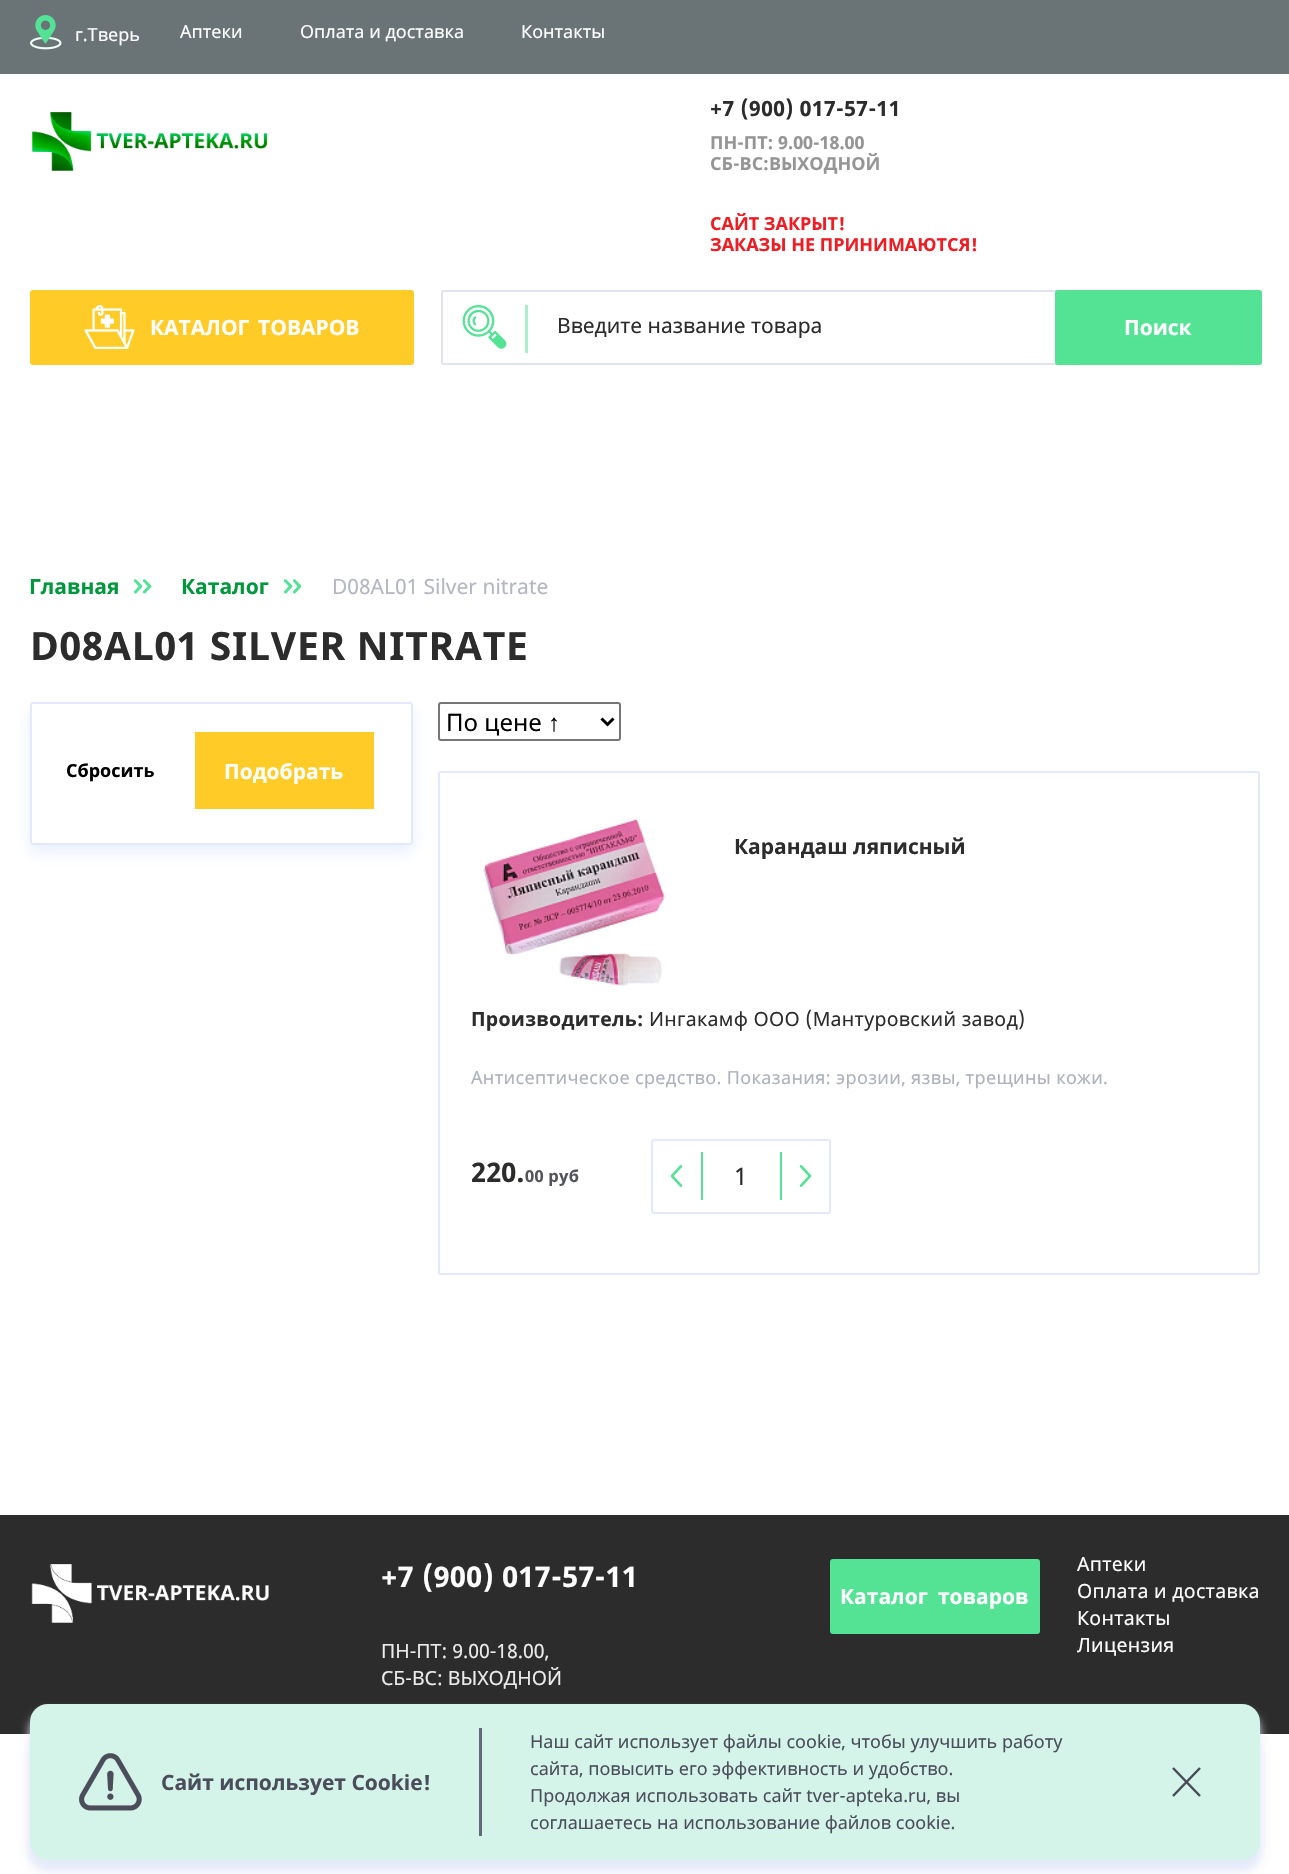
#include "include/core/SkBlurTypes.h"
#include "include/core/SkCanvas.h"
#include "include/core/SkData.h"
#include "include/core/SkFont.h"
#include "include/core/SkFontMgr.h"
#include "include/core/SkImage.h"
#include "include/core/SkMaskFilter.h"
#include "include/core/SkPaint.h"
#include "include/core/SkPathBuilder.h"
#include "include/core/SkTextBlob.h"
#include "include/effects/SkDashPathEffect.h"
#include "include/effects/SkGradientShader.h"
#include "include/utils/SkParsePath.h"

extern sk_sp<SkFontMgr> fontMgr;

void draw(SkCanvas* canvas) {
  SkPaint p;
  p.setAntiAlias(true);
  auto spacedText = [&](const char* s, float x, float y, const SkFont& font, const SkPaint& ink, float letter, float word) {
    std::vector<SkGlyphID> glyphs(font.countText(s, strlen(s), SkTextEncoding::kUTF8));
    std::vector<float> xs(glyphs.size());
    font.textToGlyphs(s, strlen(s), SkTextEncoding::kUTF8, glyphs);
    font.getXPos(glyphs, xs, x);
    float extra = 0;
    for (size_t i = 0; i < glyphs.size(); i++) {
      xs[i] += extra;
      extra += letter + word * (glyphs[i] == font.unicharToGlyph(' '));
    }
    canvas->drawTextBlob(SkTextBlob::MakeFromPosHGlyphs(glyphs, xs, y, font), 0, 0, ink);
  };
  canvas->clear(SK_ColorWHITE);
  p.setColor(SkColorSetRGB(106, 115, 118));
  canvas->drawRect(SkRect::MakeLTRB(0, 0, 1289, 74), p);
  canvas->drawImageRect(SkImages::DeferredFromEncodedData(SkData::MakeFromFileName("images/1.png")), SkRect::MakeLTRB(30, 15, 62, 50), SkSamplingOptions());
  canvas->drawImageRect(SkImages::DeferredFromEncodedData(SkData::MakeFromFileName("images/2.png")), SkRect::MakeLTRB(31, 112, 268, 171), SkSamplingOptions());
  p.setColor(SkColorSetRGB(255, 204, 39));
  canvas->drawRoundRect(SkRect::MakeLTRB(30, 290, 414, 365), 3, 3, p);
  canvas->drawImageRect(SkImages::DeferredFromEncodedData(SkData::MakeFromFileName("images/3.png")), SkRect::MakeLTRB(84, 305, 135, 349), SkSamplingOptions());
  p.setStyle(SkPaint::kStroke_Style);
  p.setStrokeWidth(2);
  p.setColor(SkColorSetRGB(225, 228, 237));
  canvas->drawRoundRect(SkRect::MakeLTRB(442, 291, 1261, 364), 2, 2, p);
  canvas->drawImageRect(SkImages::DeferredFromEncodedData(SkData::MakeFromFileName("images/4.png")), SkRect::MakeLTRB(462, 305, 507, 349), SkSamplingOptions());
  p.setStyle(SkPaint::kFill_Style);
  p.setColor(SkColorSetRGB(169, 240, 202));
  canvas->drawRect(SkRect::MakeLTRB(525, 305, 528, 353), p);
  p.setColor(SkColorSetRGB(84, 226, 149));
  canvas->drawRoundRect(SkRect::MakeLTRB(1055, 290, 1262, 365), 3, 3, p);
  canvas->drawImageRect(SkImages::DeferredFromEncodedData(SkData::MakeFromFileName("images/5.png")), SkRect::MakeLTRB(134, 579, 143, 594), SkSamplingOptions());
  canvas->drawImageRect(SkImages::DeferredFromEncodedData(SkData::MakeFromFileName("images/5.png")), SkRect::MakeLTRB(143, 579, 152, 594), SkSamplingOptions());
  canvas->drawImageRect(SkImages::DeferredFromEncodedData(SkData::MakeFromFileName("images/5.png")), SkRect::MakeLTRB(284, 579, 293, 594), SkSamplingOptions());
  canvas->drawImageRect(SkImages::DeferredFromEncodedData(SkData::MakeFromFileName("images/5.png")), SkRect::MakeLTRB(293, 579, 302, 594), SkSamplingOptions());
  p.setColor(SkColorSetARGB(191, 226, 233, 255));
  p.setMaskFilter(SkMaskFilter::MakeBlur(kNormal_SkBlurStyle, 7.5f));
  canvas->drawRoundRect(SkRect::MakeLTRB(30, 710, 413, 852), 3, 3, p);
  p.setMaskFilter(nullptr);
  p.setColor(SK_ColorWHITE);
  canvas->drawRoundRect(SkRect::MakeLTRB(31, 703, 412, 844), 2, 2, p);
  p.setStyle(SkPaint::kStroke_Style);
  p.setColor(SkColorSetRGB(226, 233, 255));
  canvas->drawRoundRect(SkRect::MakeLTRB(31, 703, 412, 844), 2, 2, p);
  p.setStyle(SkPaint::kFill_Style);
  p.setColor(SkColorSetRGB(255, 204, 39));
  canvas->drawRect(SkRect::MakeLTRB(195, 732, 374, 809), p);
  p.setStyle(SkPaint::kStroke_Style);
  p.setColor(SkColorSetRGB(118, 118, 118));
  canvas->drawRoundRect(SkRect::MakeLTRB(439, 703, 620, 740), 2, 2, p);
  p.setStrokeWidth(3);
  p.setColor(SK_ColorBLACK);
  canvas->drawPath(SkPathBuilder().moveTo(601.5f, 718.5f).lineTo(607.5f, 724.5f).lineTo(613.5f, 718.5f).detach(), p);
  p.setStrokeWidth(2);
  p.setColor(SkColorSetRGB(226, 233, 255));
  canvas->drawRoundRect(SkRect::MakeLTRB(439, 772, 1259, 1274), 2, 2, p);
  canvas->drawImageRect(SkImages::DeferredFromEncodedData(SkData::MakeFromFileName("images/6.png")), SkRect::MakeLTRB(483, 815, 667, 987), SkSamplingOptions());
  canvas->drawRoundRect(SkRect::MakeLTRB(652, 1140, 830, 1213), 2, 2, p);
  canvas->drawImageRect(SkImages::DeferredFromEncodedData(SkData::MakeFromFileName("images/7.png")), SkRect::MakeLTRB(670, 1164, 683, 1187), SkSamplingOptions());
  p.setStyle(SkPaint::kFill_Style);
  p.setColor(SkColorSetRGB(84, 226, 149));
  canvas->drawRect(SkRect::MakeLTRB(701, 1152, 703, 1200), p);
  canvas->drawRect(SkRect::MakeLTRB(780, 1152, 782, 1200), p);
  canvas->drawImageRect(SkImages::DeferredFromEncodedData(SkData::MakeFromFileName("images/8.png")), SkRect::MakeLTRB(799, 1164, 812, 1188), SkSamplingOptions());
  p.setColor(SkColorSetRGB(44, 44, 44));
  canvas->drawRect(SkRect::MakeLTRB(0, 1515, 1289, 1734), p);
  canvas->drawImageRect(SkImages::DeferredFromEncodedData(SkData::MakeFromFileName("images/9.png")), SkRect::MakeLTRB(31, 1564, 269, 1623), SkSamplingOptions());
  p.setColor(SkColorSetRGB(84, 226, 149));
  canvas->drawRoundRect(SkRect::MakeLTRB(830, 1559, 1040, 1634), 3, 3, p);
  p.setColor(SkColorSetRGB(230, 235, 250));
  p.setMaskFilter(SkMaskFilter::MakeBlur(kNormal_SkBlurStyle, 5));
  canvas->drawRoundRect(SkRect::MakeLTRB(30, 1734, 1260, 1869), 18, 18, p);
  p.setMaskFilter(nullptr);
  p.setMaskFilter(SkMaskFilter::MakeBlur(kNormal_SkBlurStyle, 5));
  canvas->drawRoundRect(SkRect::MakeLTRB(30, 1713, 1260, 1869), 18, 18, p);
  p.setMaskFilter(nullptr);
  p.setColor(SkColorSetRGB(212, 244, 233));
  canvas->drawRoundRect(SkRect::MakeLTRB(30, 1704, 1260, 1860), 18, 18, p);
  p.setColor(SkColorSetRGB(101, 104, 123));
  canvas->drawRect(SkRect::MakeLTRB(479, 1728, 482, 1836), p);
  canvas->drawImageRect(SkImages::DeferredFromEncodedData(SkData::MakeFromFileName("images/10.png")), SkRect::MakeLTRB(79, 1753, 142, 1811), SkSamplingOptions());
  p.setStyle(SkPaint::kStroke_Style);
  p.setStrokeWidth(2.5f);
  p.setColor(SkColorSetRGB(72, 74, 87));
  canvas->drawPath(SkPathBuilder().moveTo(1200, 1768).lineTo(1186.5f, 1782).moveTo(1173, 1796).lineTo(1186.5f, 1782).moveTo(1186.5f, 1782).lineTo(1173, 1768).lineTo(1200, 1796).detach(), p);
  SkFont font1(fontMgr->matchFamilyStyle("Noto Sans", SkFontStyle::Normal()), 18);
  font1.setSubpixel(true);
  p.setStyle(SkPaint::kFill_Style);
  p.setColor(SK_ColorWHITE);
  canvas->drawString("г.Тверь", 75, 41, font1, p);
  canvas->drawString("Аптеки", 180, 38, font1, p);
  canvas->drawString("Оплата и доставка", 300, 38, font1, p);
  canvas->drawString("Контакты", 521, 38, font1, p);
  SkFont font2(fontMgr->matchFamilyStyle("Noto Sans", SkFontStyle::Bold()), 21);
  font2.setSubpixel(true);
  p.setColor(SkColorSetRGB(44, 44, 44));
  spacedText("+7 (900) 017-57-11", 710, 116, font2, p, 0.5f, 0);
  SkFont font3(fontMgr->matchFamilyStyle("Noto Sans", SkFontStyle::Bold()), 18);
  font3.setSubpixel(true);
  p.setColor(SkColorSetRGB(149, 149, 149));
  canvas->drawString("ПН-ПТ: 9.00-18.00", 710, 149, font3, p);
  canvas->drawString("СБ-ВС:ВЫХОДНОЙ", 710, 170, font3, p);
  p.setColor(SkColorSetRGB(238, 29, 36));
  canvas->drawString("САЙТ ЗАКРЫТ!", 710, 230, font3, p);
  canvas->drawString("ЗАКАЗЫ НЕ ПРИНИМАЮТСЯ!", 710, 251, font3, p);
  p.setColor(SK_ColorWHITE);
  canvas->drawString("КАТАЛОГ", 150, 335, font2, p);
  canvas->drawString("ТОВАРОВ", 258, 335, font2, p);
  SkFont font4(fontMgr->matchFamilyStyle("Noto Sans", SkFontStyle::Normal()), 21);
  font4.setSubpixel(true);
  p.setColor(SkColorSetRGB(44, 44, 44));
  canvas->drawString("Введите название товара", 557, 333, font4, p);
  p.setColor(SK_ColorWHITE);
  canvas->drawString("Поиск", 1124, 335, font2, p);
  p.setColor(SkColorSetRGB(0, 152, 60));
  canvas->drawString("Главная", 29, 594, font2, p);
  canvas->drawString("Каталог", 181, 594, font2, p);
  p.setColor(SkColorSetRGB(179, 182, 195));
  canvas->drawString("D08AL01 Silver nitrate", 332, 594, font4, p);
  SkFont font5(fontMgr->matchFamilyStyle("Noto Sans", SkFontStyle::Bold()), 39);
  font5.setSubpixel(true);
  p.setColor(SkColorSetRGB(44, 44, 44));
  spacedText("D08AL01 SILVER NITRATE", 30, 660, font5, p, 0.75f, 0);
  p.setColor(SK_ColorBLACK);
  canvas->drawString("Сбросить", 66, 777, font3, p);
  p.setColor(SK_ColorWHITE);
  canvas->drawString("Подобрать", 224, 779, font2, p);
  SkFont font6(fontMgr->matchFamilyStyle("Noto Sans", SkFontStyle::Normal()), 24);
  font6.setSubpixel(true);
  p.setColor(SK_ColorBLACK);
  canvas->drawString("По цене ↑", 446, 731, font6, p);
  p.setColor(SkColorSetRGB(44, 44, 44));
  canvas->drawString("Карандаш ляписный", 734, 854, font2, p);
  SkFont font7(fontMgr->matchFamilyStyle("Noto Sans", SkFontStyle::Bold()), 19.5f);
  font7.setSubpixel(true);
  spacedText("Производитель:", 471, 1026, font7, p, 0.3f, 0);
  SkFont font8(fontMgr->matchFamilyStyle("Noto Sans", SkFontStyle::Normal()), 19.5f);
  font8.setSubpixel(true);
  spacedText("Ингакамф ООО (Мантуровский завод)", 649, 1026, font8, p, 0.3f, 0);
  p.setColor(SkColorSetRGB(173, 176, 190));
  spacedText("Антисептическое средство. Показания: эрозии, язвы, трещины кожи.", 471, 1084, font1, p, 0.35f, 0);
  SkFont font9(fontMgr->matchFamilyStyle("Noto Sans", SkFontStyle::Bold()), 27);
  font9.setSubpixel(true);
  p.setColor(SkColorSetRGB(44, 44, 44));
  spacedText("220.", 471, 1182, font9, p, 0.3f, 0);
  SkFont font10(fontMgr->matchFamilyStyle("Noto Sans", SkFontStyle::Bold()), 16.5f);
  font10.setSubpixel(true);
  p.setColor(SkColorSetRGB(83, 84, 92));
  spacedText("00 руб", 525, 1182, font10, p, 0.3f, 0);
  p.setColor(SkColorSetRGB(44, 44, 44));
  canvas->drawString("1", 734, 1185, font6, p);
  SkFont font11(fontMgr->matchFamilyStyle("Noto Sans", SkFontStyle::Bold()), 28.5f);
  font11.setSubpixel(true);
  p.setColor(SK_ColorWHITE);
  spacedText("+7 (900) 017-57-11", 381, 1587, font11, p, 0.6f, 0);
  p.setColor(SkColorSetRGB(235, 235, 235));
  canvas->drawString("ПН-ПТ: 9.00-18.00,", 381, 1658, font8, p);
  canvas->drawString("СБ-ВС: ВЫХОДНОЙ", 381, 1685, font8, p);
  p.setColor(SK_ColorWHITE);
  canvas->drawString("Каталог", 840, 1604, font2, p);
  canvas->drawString("товаров", 938, 1604, font2, p);
  spacedText("Аптеки", 1077, 1571, font8, p, 0.3f, 0);
  spacedText("Оплата и доставка", 1077, 1598, font8, p, 0.3f, 0);
  spacedText("Контакты", 1077, 1625, font8, p, 0.3f, 0);
  spacedText("Лицензия", 1077, 1652, font8, p, 0.3f, 0);
  p.setColor(SkColorSetRGB(75, 77, 91));
  canvas->drawString("Сайт использует Cookie!", 161, 1790, font2, p);
  canvas->drawString("Наш сайт использует файлы cookie, чтобы улучшить работу", 530, 1748, font1, p);
  canvas->drawString("сайта, повысить его эффективность и удобство.", 530, 1775, font1, p);
  canvas->drawString("Продолжая использовать сайт tver-apteka.ru, вы", 530, 1802, font1, p);
  canvas->drawString("соглашаетесь на использование файлов cookie.", 530, 1829, font1, p);
}
